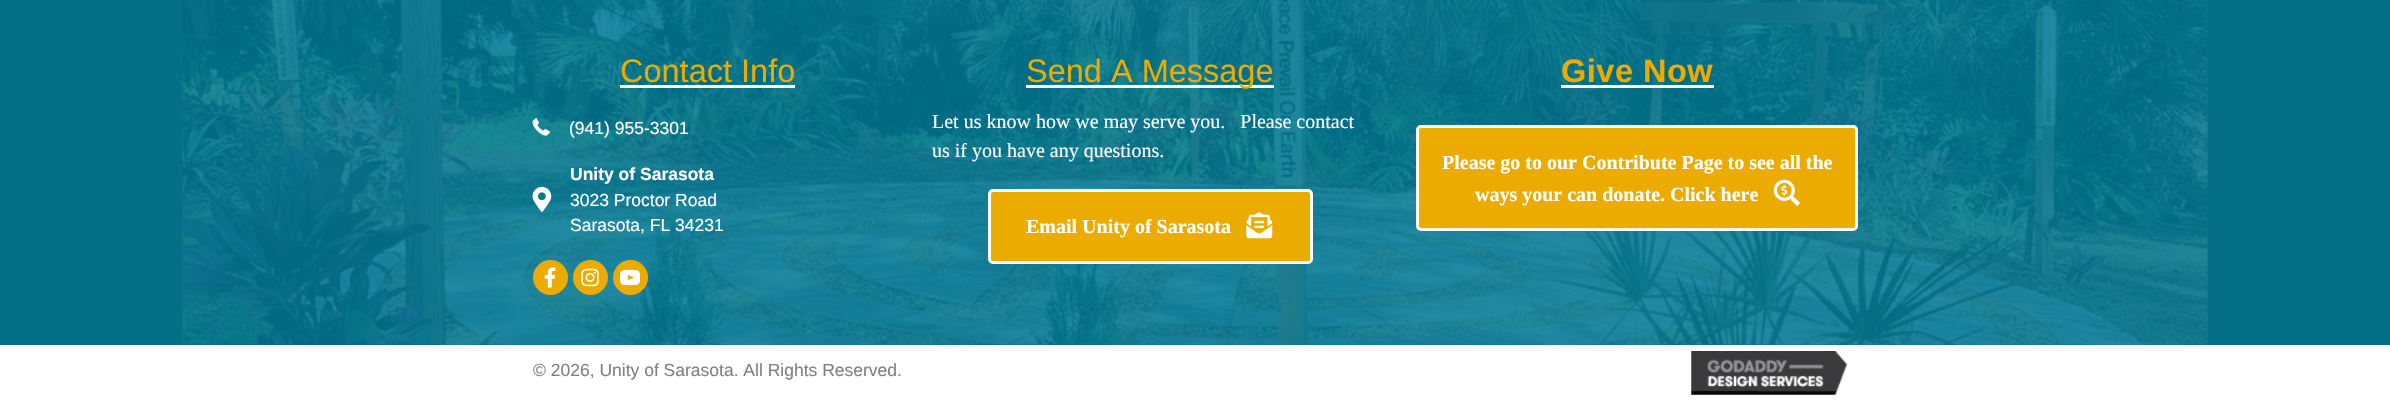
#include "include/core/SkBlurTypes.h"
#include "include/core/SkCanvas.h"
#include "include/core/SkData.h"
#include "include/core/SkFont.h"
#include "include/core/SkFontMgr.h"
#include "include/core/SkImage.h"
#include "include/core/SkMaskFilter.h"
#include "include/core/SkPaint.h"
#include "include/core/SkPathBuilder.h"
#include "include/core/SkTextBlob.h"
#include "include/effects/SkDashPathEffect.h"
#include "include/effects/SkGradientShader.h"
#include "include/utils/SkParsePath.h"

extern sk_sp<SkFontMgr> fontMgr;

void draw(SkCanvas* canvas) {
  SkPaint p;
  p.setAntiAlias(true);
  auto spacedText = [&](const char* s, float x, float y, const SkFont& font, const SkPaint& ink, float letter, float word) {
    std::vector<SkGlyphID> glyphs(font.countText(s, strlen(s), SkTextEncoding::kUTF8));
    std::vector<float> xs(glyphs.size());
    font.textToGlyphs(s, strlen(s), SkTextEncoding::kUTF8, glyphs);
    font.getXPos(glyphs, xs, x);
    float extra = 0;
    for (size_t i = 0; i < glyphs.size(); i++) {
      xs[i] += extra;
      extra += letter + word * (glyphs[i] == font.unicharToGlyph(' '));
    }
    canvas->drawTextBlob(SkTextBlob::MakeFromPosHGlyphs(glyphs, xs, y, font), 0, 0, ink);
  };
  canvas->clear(SkColorSetRGB(6, 111, 136));
  canvas->drawImageRect(SkImages::DeferredFromEncodedData(SkData::MakeFromFileName("images/1.png")), SkRect::MakeLTRB(182, 0, 2208, 345), SkSamplingOptions());
  p.setColor(SK_ColorWHITE);
  canvas->drawRect(SkRect::MakeLTRB(620, 85, 795, 88), p);
  canvas->drawImageRect(SkImages::DeferredFromEncodedData(SkData::MakeFromFileName("images/2.png")), SkRect::MakeLTRB(532, 118, 550, 136), SkSamplingOptions());
  canvas->drawImageRect(SkImages::DeferredFromEncodedData(SkData::MakeFromFileName("images/3.png")), SkRect::MakeLTRB(532, 186, 552, 212), SkSamplingOptions());
  p.setColor(SkColorSetRGB(235, 171, 0));
  canvas->drawCircle(550.5f, 277.5f, 17.5f, p);
  canvas->drawImageRect(SkImages::DeferredFromEncodedData(SkData::MakeFromFileName("images/4.png")), SkRect::MakeLTRB(544, 267, 556, 288), SkSamplingOptions());
  canvas->drawCircle(590.5f, 277.5f, 17.5f, p);
  canvas->drawImageRect(SkImages::DeferredFromEncodedData(SkData::MakeFromFileName("images/5.png")), SkRect::MakeLTRB(581, 268, 599, 287), SkSamplingOptions());
  canvas->drawCircle(630.5f, 277.5f, 17.5f, p);
  canvas->drawImageRect(SkImages::DeferredFromEncodedData(SkData::MakeFromFileName("images/6.png")), SkRect::MakeLTRB(620, 269, 640, 286), SkSamplingOptions());
  p.setColor(SK_ColorWHITE);
  canvas->drawRect(SkRect::MakeLTRB(1026, 85, 1274, 88), p);
  p.setColor(SkColorSetRGB(235, 171, 0));
  canvas->drawRoundRect(SkRect::MakeLTRB(989.5f, 190.5f, 1311.5f, 262.5f), 3.5f, 3.5f, p);
  p.setStyle(SkPaint::kStroke_Style);
  p.setStrokeWidth(3);
  p.setColor(SK_ColorWHITE);
  canvas->drawRoundRect(SkRect::MakeLTRB(989.5f, 190.5f, 1311.5f, 262.5f), 3.5f, 3.5f, p);
  canvas->drawImageRect(SkImages::DeferredFromEncodedData(SkData::MakeFromFileName("images/7.png")), SkRect::MakeLTRB(1246, 212, 1273, 239), SkSamplingOptions());
  p.setStyle(SkPaint::kFill_Style);
  canvas->drawRect(SkRect::MakeLTRB(1561, 85, 1714, 88), p);
  p.setColor(SkColorSetRGB(235, 171, 0));
  canvas->drawRoundRect(SkRect::MakeLTRB(1417.5f, 126.5f, 1856.5f, 229.5f), 3.5f, 3.5f, p);
  p.setStyle(SkPaint::kStroke_Style);
  p.setColor(SK_ColorWHITE);
  canvas->drawRoundRect(SkRect::MakeLTRB(1417.5f, 126.5f, 1856.5f, 229.5f), 3.5f, 3.5f, p);
  canvas->drawImageRect(SkImages::DeferredFromEncodedData(SkData::MakeFromFileName("images/8.png")), SkRect::MakeLTRB(1773, 179, 1800, 206), SkSamplingOptions());
  p.setStyle(SkPaint::kFill_Style);
  canvas->drawRect(SkRect::MakeLTRB(0, 345, 2390, 401), p);
  canvas->drawImageRect(SkImages::DeferredFromEncodedData(SkData::MakeFromFileName("images/9.png")), SkRect::MakeLTRB(1691, 351, 1848, 395), SkSamplingOptions());
  SkFont font1(fontMgr->matchFamilyStyle("Liberation Sans", SkFontStyle::Normal()), 32.5f);
  font1.setSubpixel(true);
  p.setColor(SkColorSetRGB(235, 171, 0));
  canvas->drawString("Contact Info", 620, 82, font1, p);
  SkFont font2(fontMgr->matchFamilyStyle("Liberation Sans", SkFontStyle::Normal()), 17.5f);
  font2.setSubpixel(true);
  p.setColor(SK_ColorWHITE);
  canvas->drawString("(941) 955-3301", 569, 134, font2, p);
  SkFont font3(fontMgr->matchFamilyStyle("Liberation Sans", SkFontStyle::Bold()), 17.5f);
  font3.setSubpixel(true);
  canvas->drawString("Unity of Sarasota", 570, 180, font3, p);
  canvas->drawString("3023 Proctor Road", 570, 206, font2, p);
  canvas->drawString("Sarasota, FL 34231", 570, 231, font2, p);
  p.setColor(SkColorSetRGB(235, 171, 0));
  canvas->drawString("Send A Message", 1026, 82, font1, p);
  SkFont font4(fontMgr->matchFamilyStyle("Liberation Serif", SkFontStyle::Normal()), 20);
  font4.setSubpixel(true);
  p.setColor(SK_ColorWHITE);
  canvas->drawString("Let us know how we may serve you.   Please contact", 932, 128, font4, p);
  canvas->drawString("us if you have any questions.", 932, 157, font4, p);
  SkFont font5(fontMgr->matchFamilyStyle("Liberation Serif", SkFontStyle::Bold()), 20);
  font5.setSubpixel(true);
  canvas->drawString("Email Unity of Sarasota", 1026, 233, font5, p);
  SkFont font6(fontMgr->matchFamilyStyle("Liberation Sans", SkFontStyle::Bold()), 32.5f);
  font6.setSubpixel(true);
  p.setColor(SkColorSetRGB(235, 171, 0));
  spacedText("Give Now", 1561, 82, font6, p, 0.5f, 0);
  p.setColor(SK_ColorWHITE);
  canvas->drawString("Please go to our Contribute Page to see all the", 1442, 169, font5, p);
  canvas->drawString("ways your can donate. Click here", 1475, 201, font5, p);
  p.setColor(SkColorSetRGB(128, 128, 128));
  canvas->drawString("© 2026, Unity of Sarasota. All Rights Reserved.", 533, 376, font2, p);
}
